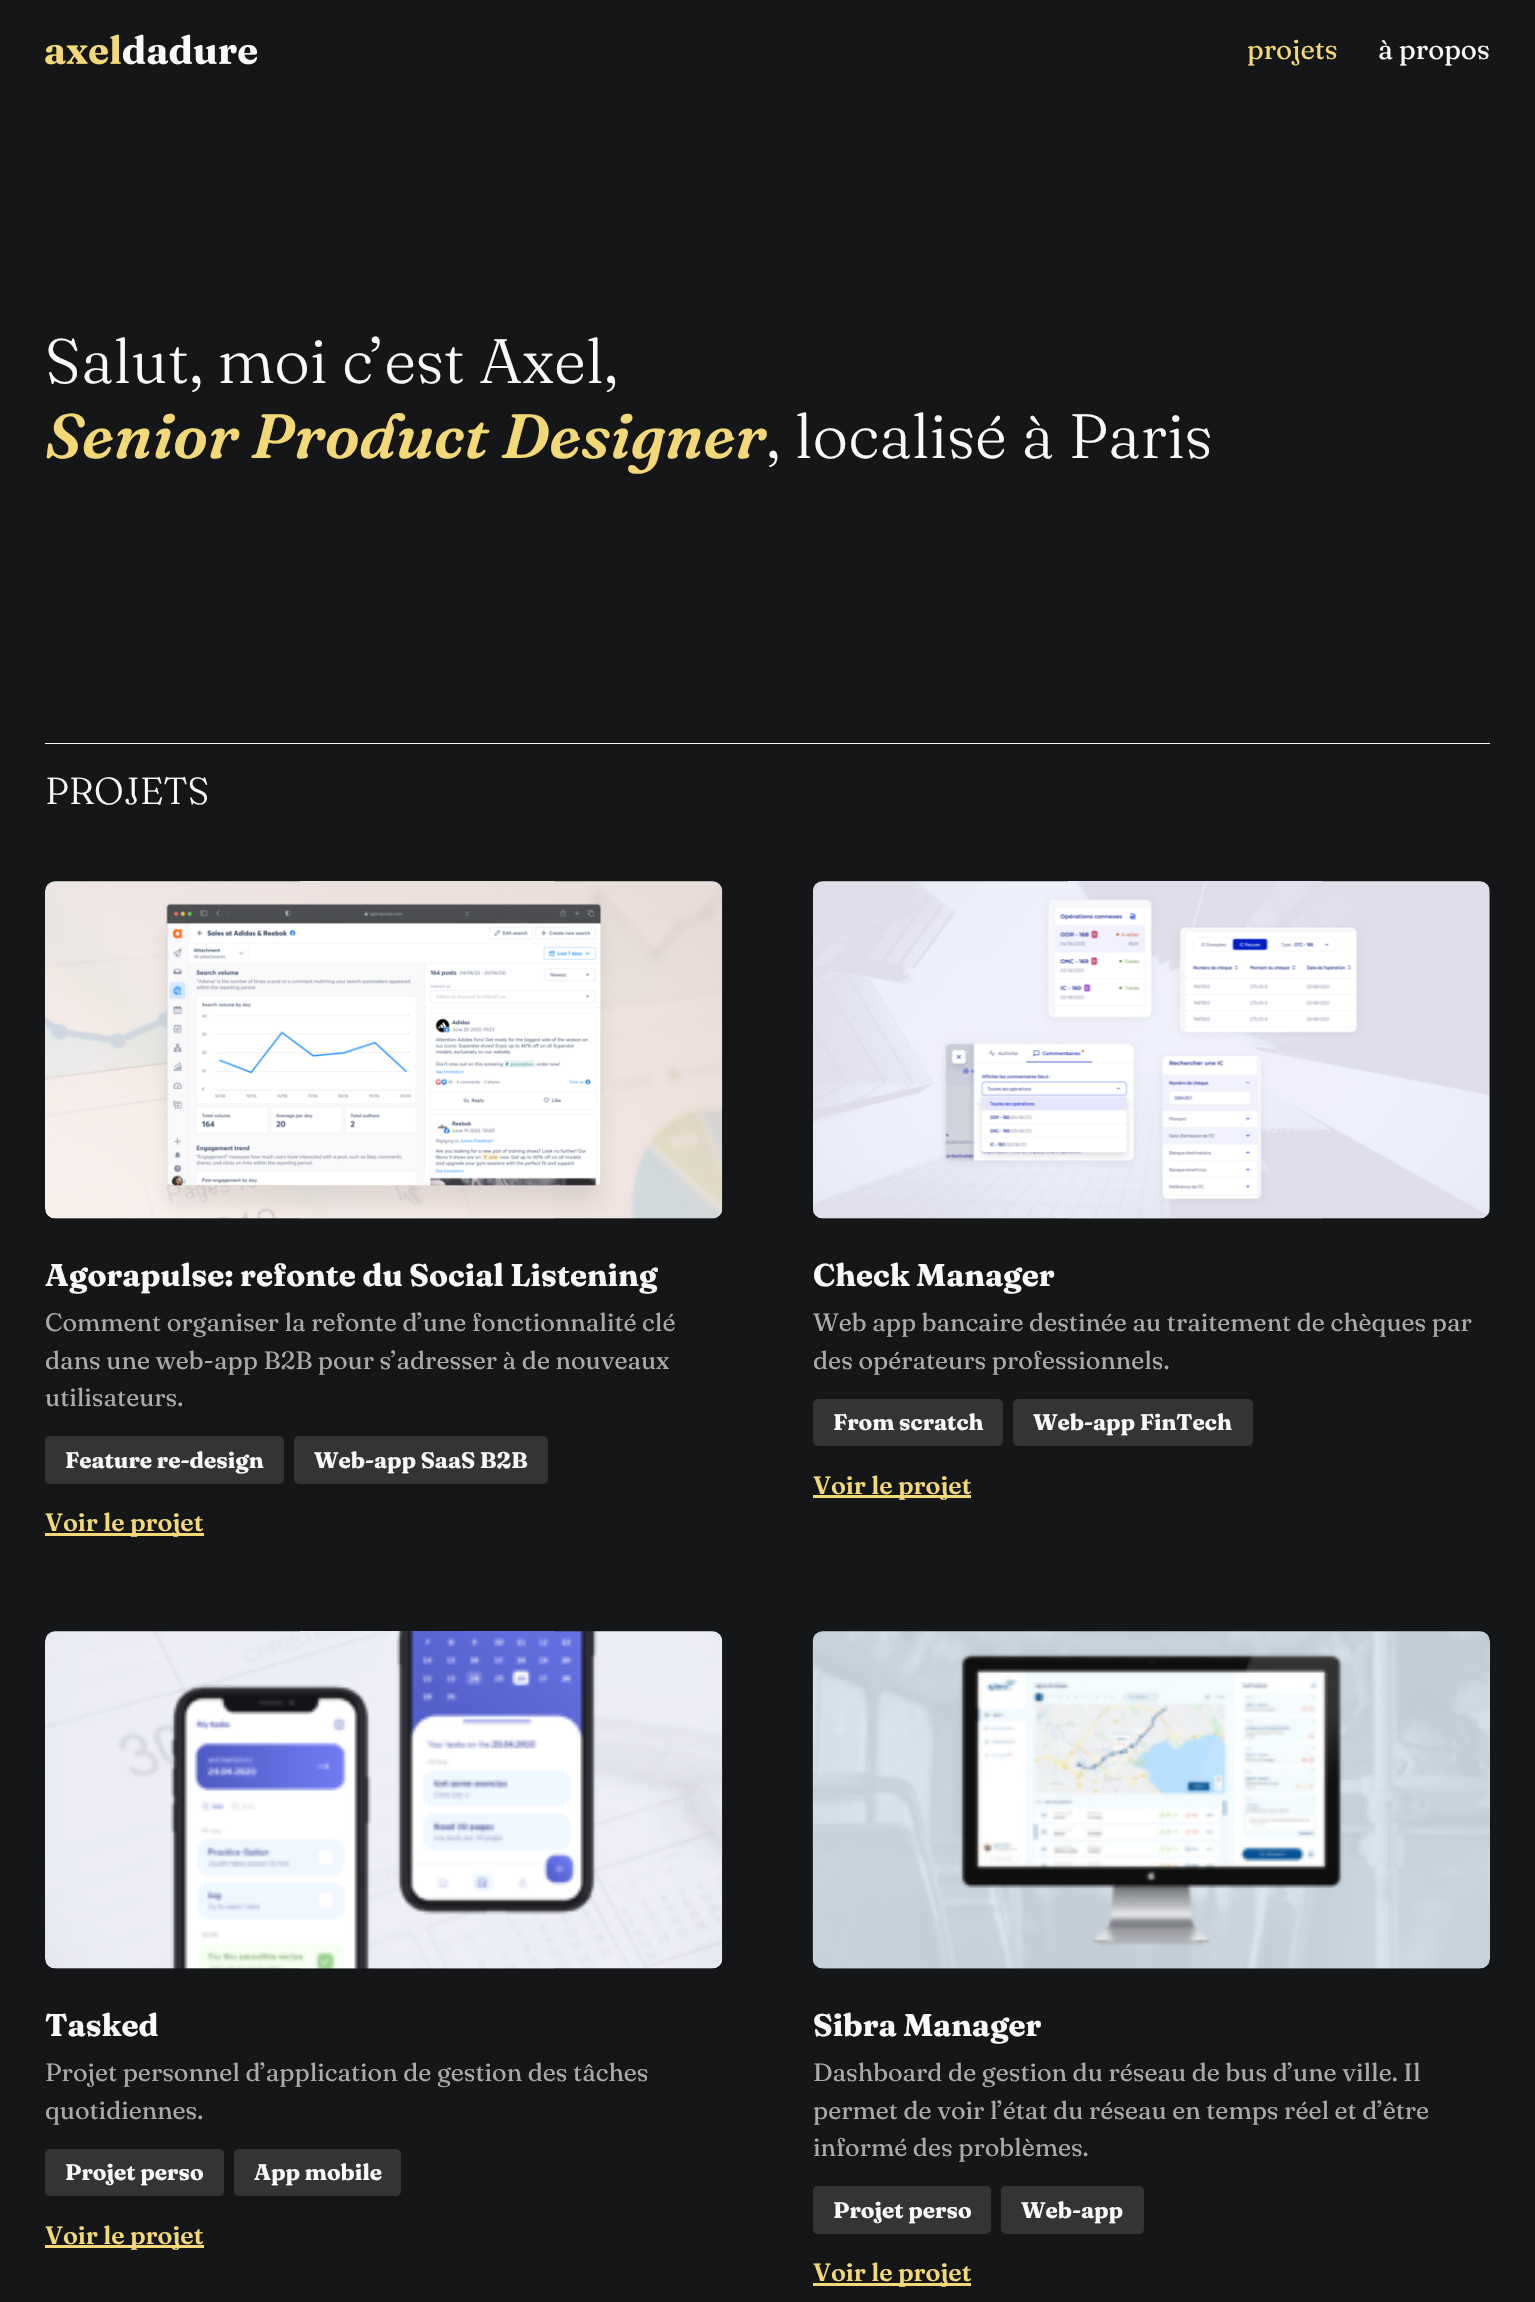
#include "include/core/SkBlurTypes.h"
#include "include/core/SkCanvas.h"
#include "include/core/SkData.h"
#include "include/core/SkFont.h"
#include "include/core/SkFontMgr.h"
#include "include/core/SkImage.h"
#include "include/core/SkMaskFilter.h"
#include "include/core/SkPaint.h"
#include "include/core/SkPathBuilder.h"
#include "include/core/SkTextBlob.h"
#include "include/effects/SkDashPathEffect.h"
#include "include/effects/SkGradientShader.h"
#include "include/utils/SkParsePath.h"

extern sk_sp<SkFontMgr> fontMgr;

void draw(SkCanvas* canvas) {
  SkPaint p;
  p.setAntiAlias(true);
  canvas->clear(SkColorSetRGB(20, 22, 24));
  canvas->drawImageRect(SkImages::DeferredFromEncodedData(SkData::MakeFromFileName("images/1.png")), SkRect::MakeLTRB(45, 34, 258, 65), SkSamplingOptions());
  p.setColor(SkColorSetRGB(249, 249, 249));
  canvas->drawRect(SkRect::MakeLTRB(45, 743, 1490, 744), p);
  canvas->drawImageRect(SkImages::DeferredFromEncodedData(SkData::MakeFromFileName("images/2.png")), SkRect::MakeLTRB(45, 881, 723, 1219), SkSamplingOptions());
  p.setColor(SkColorSetRGB(52, 52, 52));
  canvas->drawRoundRect(SkRect::MakeLTRB(45, 1436, 284, 1484), 5, 5, p);
  canvas->drawRoundRect(SkRect::MakeLTRB(294, 1436, 548, 1484), 5, 5, p);
  p.setColor(SkColorSetRGB(243, 216, 119));
  canvas->drawRect(SkRect::MakeLTRB(45, 1533, 204, 1536), p);
  canvas->drawImageRect(SkImages::DeferredFromEncodedData(SkData::MakeFromFileName("images/3.png")), SkRect::MakeLTRB(813, 881, 1490, 1219), SkSamplingOptions());
  p.setColor(SkColorSetRGB(52, 52, 52));
  canvas->drawRoundRect(SkRect::MakeLTRB(813, 1399, 1003, 1446), 5, 5, p);
  canvas->drawRoundRect(SkRect::MakeLTRB(1013, 1399, 1253, 1446), 5, 5, p);
  p.setColor(SkColorSetRGB(243, 216, 119));
  canvas->drawRect(SkRect::MakeLTRB(813, 1495, 971, 1498), p);
  canvas->drawImageRect(SkImages::DeferredFromEncodedData(SkData::MakeFromFileName("images/4.png")), SkRect::MakeLTRB(45, 1631, 723, 1969), SkSamplingOptions());
  p.setColor(SkColorSetRGB(52, 52, 52));
  canvas->drawRoundRect(SkRect::MakeLTRB(45, 2149, 224, 2196), 5, 5, p);
  canvas->drawRoundRect(SkRect::MakeLTRB(234, 2149, 401, 2196), 5, 5, p);
  p.setColor(SkColorSetRGB(243, 216, 119));
  canvas->drawRect(SkRect::MakeLTRB(45, 2245, 204, 2248), p);
  canvas->drawImageRect(SkImages::DeferredFromEncodedData(SkData::MakeFromFileName("images/5.png")), SkRect::MakeLTRB(812, 1631, 1490, 1969), SkSamplingOptions());
  p.setColor(SkColorSetRGB(52, 52, 52));
  canvas->drawRoundRect(SkRect::MakeLTRB(813, 2186, 991, 2234), 5, 5, p);
  canvas->drawRoundRect(SkRect::MakeLTRB(1001, 2186, 1144, 2234), 5, 5, p);
  p.setColor(SkColorSetRGB(243, 216, 119));
  canvas->drawRect(SkRect::MakeLTRB(813, 2283, 971, 2286), p);
  SkFont font1(fontMgr->matchFamilyStyle("Fraunces", SkFontStyle::Normal()), 27.5f);
  font1.setSubpixel(true);
  canvas->drawString("projets", 1247, 59, font1, p);
  p.setColor(SkColorSetRGB(249, 249, 249));
  canvas->drawString("à propos", 1378, 59, font1, p);
  SkFont font2(fontMgr->matchFamilyStyle("Fraunces", SkFontStyle(300, SkFontStyle::kNormal_Width, SkFontStyle::kUpright_Slant)), 62.5f);
  font2.setSubpixel(true);
  canvas->drawString("Salut, moi c’est Axel,", 45, 383, font2, p);
  SkFont font3(fontMgr->matchFamilyStyle("Fraunces", SkFontStyle(600, SkFontStyle::kNormal_Width, SkFontStyle::kItalic_Slant)), 62.5f);
  font3.setSubpixel(true);
  p.setColor(SkColorSetRGB(243, 216, 119));
  canvas->drawString("Senior Product Designer", 45, 458, font3, p);
  p.setColor(SkColorSetRGB(249, 249, 249));
  canvas->drawString(", localisé à Paris", 766, 458, font2, p);
  SkFont font4(fontMgr->matchFamilyStyle("Fraunces", SkFontStyle(300, SkFontStyle::kNormal_Width, SkFontStyle::kUpright_Slant)), 37.5f);
  font4.setSubpixel(true);
  canvas->drawString("PROJETS", 45, 804, font4, p);
  SkFont font5(fontMgr->matchFamilyStyle("Fraunces", SkFontStyle::Bold()), 31.25f);
  font5.setSubpixel(true);
  canvas->drawString("Agorapulse: refonte du Social Listening", 45, 1286, font5, p);
  SkFont font6(fontMgr->matchFamilyStyle("Fraunces", SkFontStyle::Normal()), 25);
  font6.setSubpixel(true);
  p.setColor(SkColorSetRGB(170, 170, 170));
  canvas->drawString("Comment organiser la refonte d’une fonctionnalité clé", 45, 1331, font6, p);
  canvas->drawString("dans une web-app B2B pour s’adresser à de nouveaux", 45, 1369, font6, p);
  canvas->drawString("utilisateurs.", 45, 1406, font6, p);
  SkFont font7(fontMgr->matchFamilyStyle("Fraunces", SkFontStyle::Bold()), 22.5f);
  font7.setSubpixel(true);
  p.setColor(SkColorSetRGB(249, 249, 249));
  canvas->drawString("Feature re-design", 65, 1468, font7, p);
  canvas->drawString("Web-app SaaS B2B", 314, 1468, font7, p);
  SkFont font8(fontMgr->matchFamilyStyle("Fraunces", SkFontStyle(600, SkFontStyle::kNormal_Width, SkFontStyle::kUpright_Slant)), 25);
  font8.setSubpixel(true);
  p.setColor(SkColorSetRGB(243, 216, 119));
  canvas->drawString("Voir le projet", 45, 1531, font8, p);
  p.setColor(SkColorSetRGB(249, 249, 249));
  canvas->drawString("Check Manager", 813, 1286, font5, p);
  p.setColor(SkColorSetRGB(170, 170, 170));
  canvas->drawString("Web app bancaire destinée au traitement de chèques par", 813, 1331, font6, p);
  canvas->drawString("des opérateurs professionnels.", 813, 1369, font6, p);
  p.setColor(SkColorSetRGB(249, 249, 249));
  canvas->drawString("From scratch", 833, 1430, font7, p);
  canvas->drawString("Web-app FinTech", 1033, 1430, font7, p);
  p.setColor(SkColorSetRGB(243, 216, 119));
  canvas->drawString("Voir le projet", 813, 1494, font8, p);
  p.setColor(SkColorSetRGB(249, 249, 249));
  canvas->drawString("Tasked", 45, 2036, font5, p);
  p.setColor(SkColorSetRGB(170, 170, 170));
  canvas->drawString("Projet personnel d’application de gestion des tâches", 45, 2081, font6, p);
  canvas->drawString("quotidiennes.", 45, 2119, font6, p);
  p.setColor(SkColorSetRGB(249, 249, 249));
  canvas->drawString("Projet perso", 65, 2180, font7, p);
  canvas->drawString("App mobile", 254, 2180, font7, p);
  p.setColor(SkColorSetRGB(243, 216, 119));
  canvas->drawString("Voir le projet", 45, 2244, font8, p);
  p.setColor(SkColorSetRGB(249, 249, 249));
  canvas->drawString("Sibra Manager", 813, 2036, font5, p);
  p.setColor(SkColorSetRGB(170, 170, 170));
  canvas->drawString("Dashboard de gestion du réseau de bus d’une ville. Il", 813, 2081, font6, p);
  canvas->drawString("permet de voir l’état du réseau en temps réel et d’être", 813, 2119, font6, p);
  canvas->drawString("informé des problèmes.", 813, 2156, font6, p);
  p.setColor(SkColorSetRGB(249, 249, 249));
  canvas->drawString("Projet perso", 833, 2218, font7, p);
  canvas->drawString("Web-app", 1021, 2218, font7, p);
  p.setColor(SkColorSetRGB(243, 216, 119));
  canvas->drawString("Voir le projet", 813, 2281, font8, p);
}
